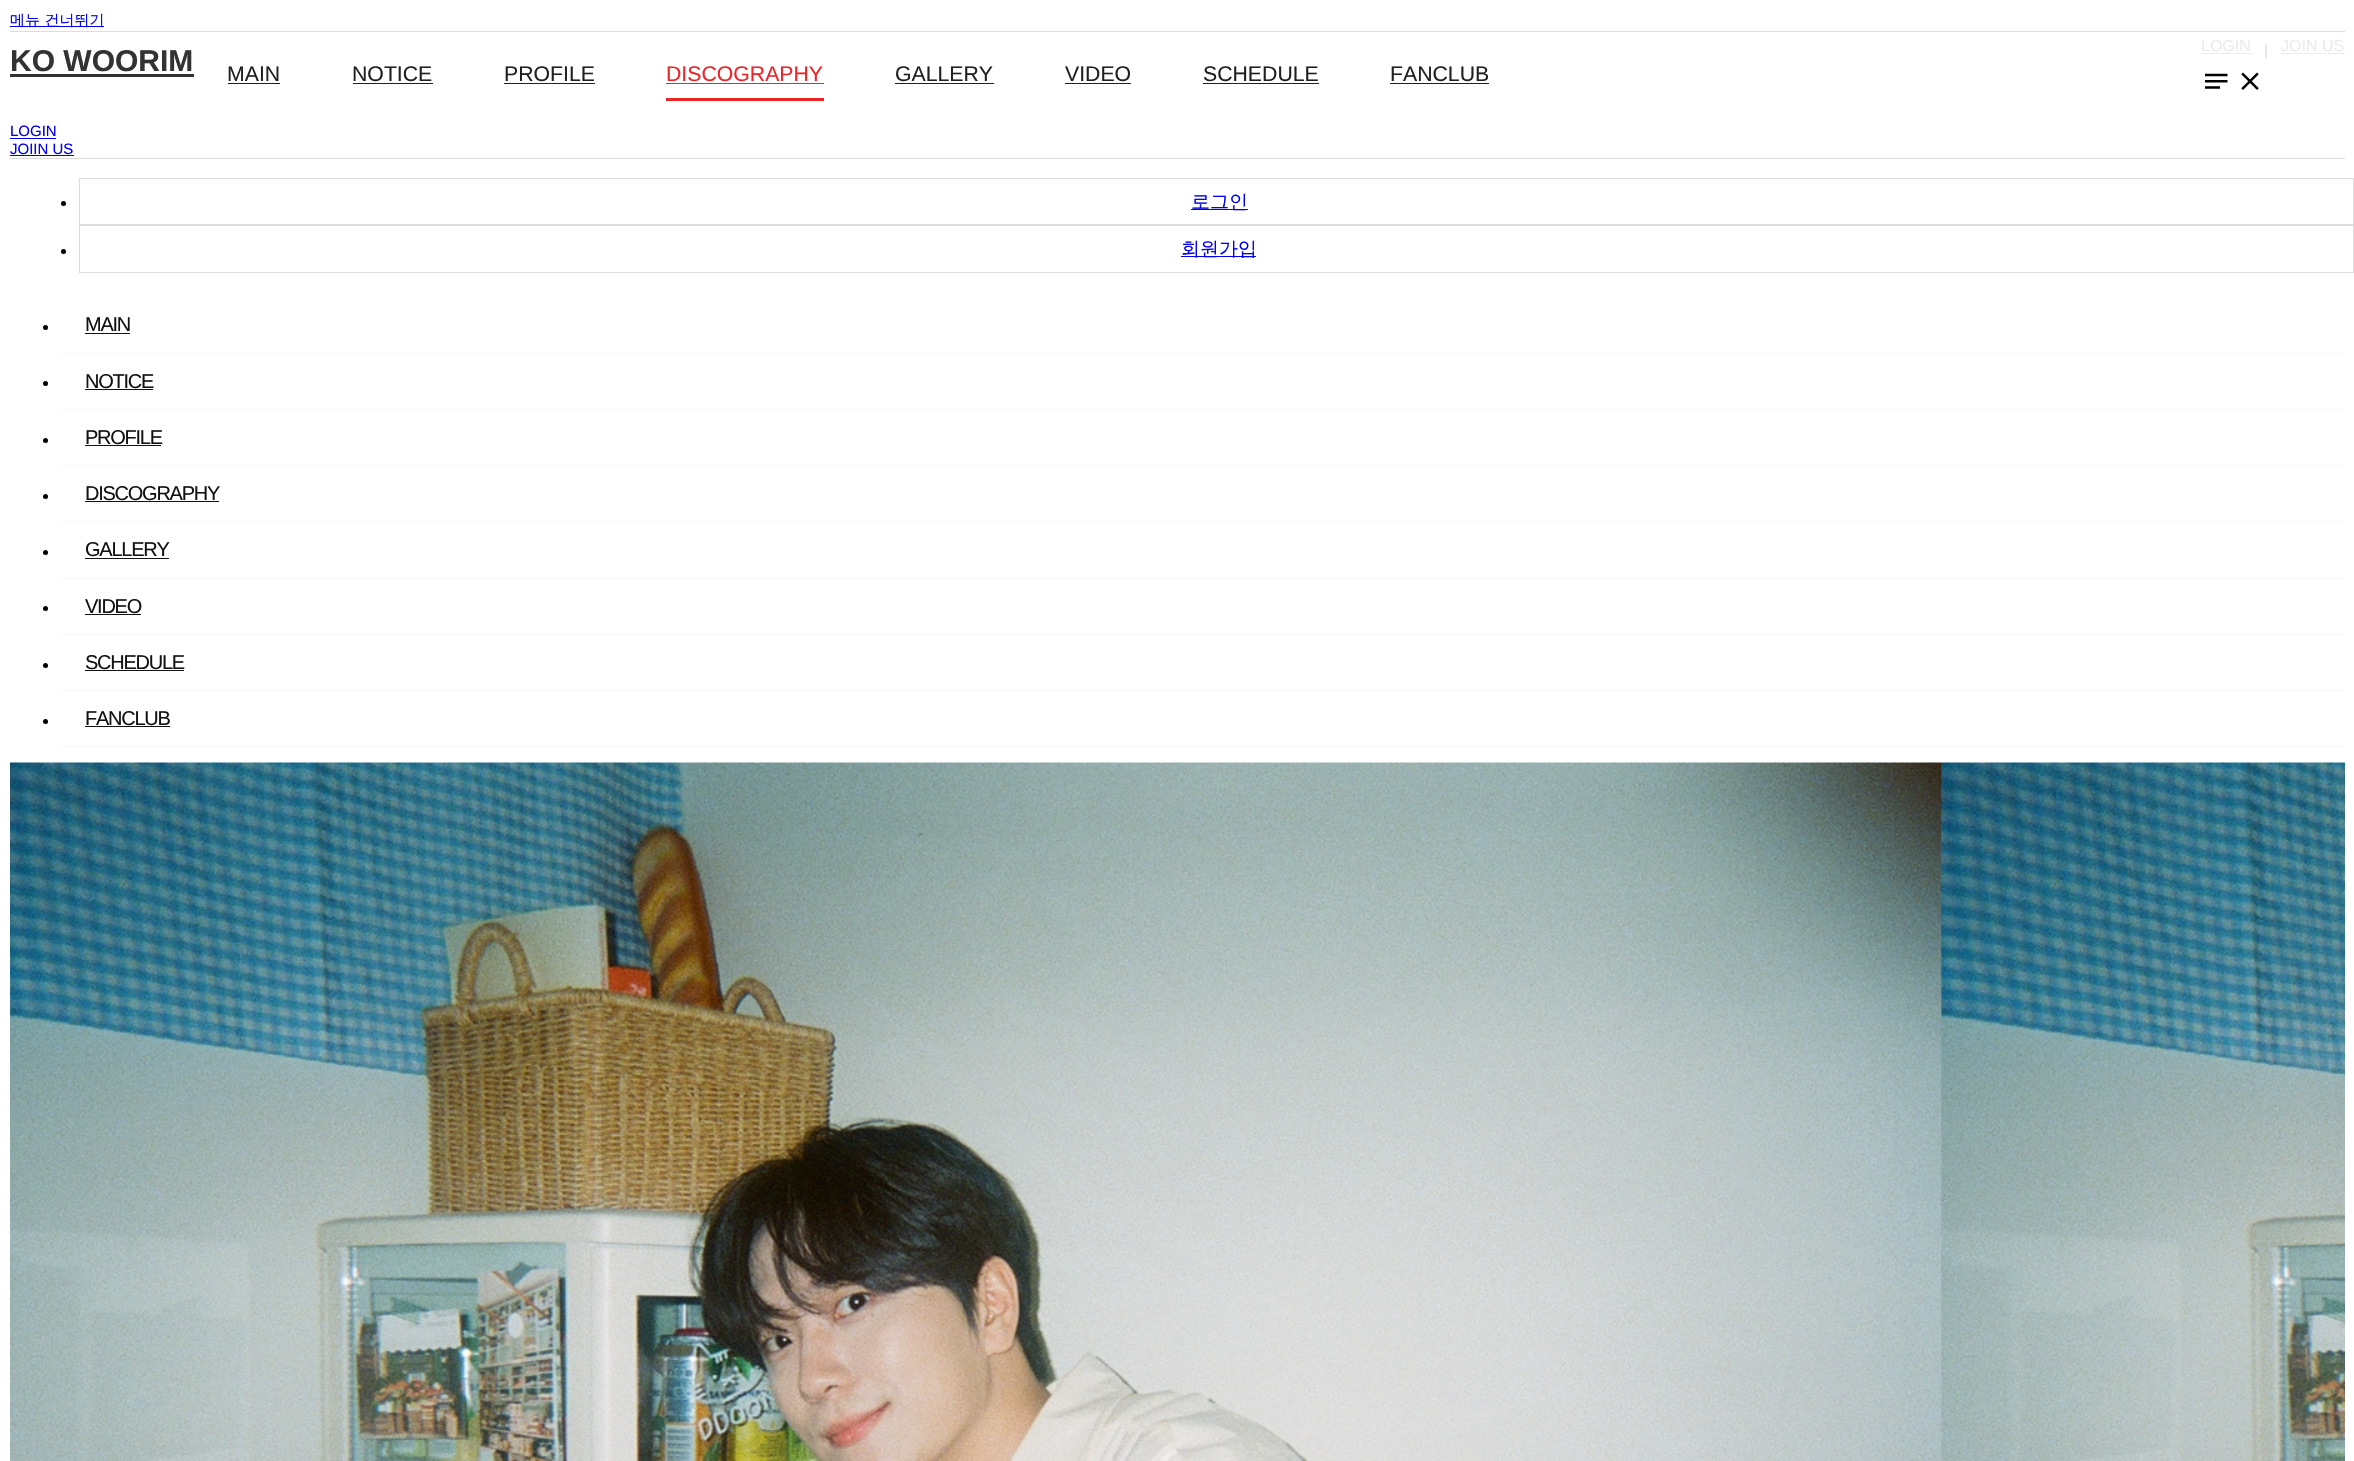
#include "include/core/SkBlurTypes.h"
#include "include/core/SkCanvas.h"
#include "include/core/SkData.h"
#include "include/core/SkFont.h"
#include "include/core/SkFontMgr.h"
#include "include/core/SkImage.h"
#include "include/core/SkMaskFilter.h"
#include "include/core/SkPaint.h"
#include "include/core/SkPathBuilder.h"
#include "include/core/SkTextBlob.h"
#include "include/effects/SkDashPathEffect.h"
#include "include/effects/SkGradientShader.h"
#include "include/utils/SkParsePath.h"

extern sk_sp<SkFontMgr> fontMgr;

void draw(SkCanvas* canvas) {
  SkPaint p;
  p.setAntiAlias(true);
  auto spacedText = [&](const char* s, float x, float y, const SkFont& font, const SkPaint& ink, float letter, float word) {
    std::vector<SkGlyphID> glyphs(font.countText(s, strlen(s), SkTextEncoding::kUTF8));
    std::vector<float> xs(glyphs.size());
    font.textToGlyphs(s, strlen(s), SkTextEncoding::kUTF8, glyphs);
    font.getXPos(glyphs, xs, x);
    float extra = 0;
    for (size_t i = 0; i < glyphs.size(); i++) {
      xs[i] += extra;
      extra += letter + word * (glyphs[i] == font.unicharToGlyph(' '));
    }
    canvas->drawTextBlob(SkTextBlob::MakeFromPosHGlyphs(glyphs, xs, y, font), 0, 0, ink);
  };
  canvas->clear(SK_ColorWHITE);
  p.setColor(SkColorSetRGB(0, 0, 238));
  canvas->drawRect(SkRect::MakeLTRB(10, 26, 104, 27), p);
  p.setColor(SkColorSetRGB(221, 221, 221));
  canvas->drawRect(SkRect::MakeLTRB(10, 158, 2345, 159), p);
  canvas->drawRect(SkRect::MakeLTRB(10, 31, 2345, 32), p);
  p.setColor(SkColorSetRGB(51, 51, 51));
  canvas->drawRect(SkRect::MakeLTRB(10, 74, 194, 77), p);
  p.setColor(SkColorSetRGB(236, 236, 236));
  canvas->drawRect(SkRect::MakeLTRB(2201, 53, 2253, 54), p);
  canvas->drawRect(SkRect::MakeLTRB(2281, 53, 2345, 54), p);
  canvas->drawImageRect(SkImages::DeferredFromEncodedData(SkData::MakeFromFileName("images/1.png")), SkRect::MakeLTRB(2205, 73, 2228, 89), SkSamplingOptions());
  canvas->drawImageRect(SkImages::DeferredFromEncodedData(SkData::MakeFromFileName("images/2.png")), SkRect::MakeLTRB(2241, 72, 2259, 90), SkSamplingOptions());
  p.setColor(SkColorSetRGB(35, 31, 32));
  canvas->drawRect(SkRect::MakeLTRB(228, 83, 280, 84), p);
  canvas->drawRect(SkRect::MakeLTRB(353, 83, 433, 84), p);
  canvas->drawRect(SkRect::MakeLTRB(504, 83, 595, 84), p);
  p.setColor(SkColorSetRGB(235, 38, 41));
  canvas->drawRect(SkRect::MakeLTRB(666, 83, 824, 84), p);
  canvas->drawRect(SkRect::MakeLTRB(666, 98, 824, 101), p);
  p.setColor(SkColorSetRGB(35, 31, 32));
  canvas->drawRect(SkRect::MakeLTRB(895, 83, 994, 84), p);
  canvas->drawRect(SkRect::MakeLTRB(1065, 83, 1131, 84), p);
  canvas->drawRect(SkRect::MakeLTRB(1203, 83, 1319, 84), p);
  canvas->drawRect(SkRect::MakeLTRB(1390, 83, 1489, 84), p);
  p.setColor(SkColorSetRGB(0, 0, 238));
  canvas->drawRect(SkRect::MakeLTRB(10, 138, 56, 139), p);
  canvas->drawRect(SkRect::MakeLTRB(10, 155, 74, 156), p);
  p.setColor(SK_ColorBLACK);
  canvas->drawCircle(63.5f, 203.5f, 2.5f, p);
  p.setStyle(SkPaint::kStroke_Style);
  p.setStrokeWidth(1);
  p.setColor(SkColorSetRGB(221, 221, 221));
  canvas->drawRect(SkRect::MakeLTRB(79.5f, 178.5f, 2353.5f, 224.5f), p);
  p.setStyle(SkPaint::kFill_Style);
  p.setColor(SkColorSetRGB(0, 0, 238));
  canvas->drawRect(SkRect::MakeLTRB(1191, 209, 1248, 210), p);
  p.setColor(SK_ColorBLACK);
  canvas->drawCircle(63.5f, 251.5f, 2.5f, p);
  p.setStyle(SkPaint::kStroke_Style);
  p.setColor(SkColorSetRGB(221, 221, 221));
  canvas->drawRect(SkRect::MakeLTRB(79.5f, 225.5f, 2353.5f, 272.5f), p);
  p.setStyle(SkPaint::kFill_Style);
  p.setColor(SkColorSetRGB(0, 0, 238));
  canvas->drawRect(SkRect::MakeLTRB(1181, 256, 1256, 257), p);
  p.setColor(SkColorSetRGB(247, 248, 250));
  canvas->drawRect(SkRect::MakeLTRB(60, 353, 2345, 354), p);
  p.setColor(SK_ColorBLACK);
  canvas->drawCircle(45.5f, 327.5f, 2.5f, p);
  p.setColor(SkColorSetRGB(18, 18, 18));
  canvas->drawRect(SkRect::MakeLTRB(85, 333, 130, 334), p);
  p.setColor(SkColorSetRGB(247, 248, 250));
  canvas->drawRect(SkRect::MakeLTRB(60, 409, 2345, 410), p);
  p.setColor(SK_ColorBLACK);
  canvas->drawCircle(45.5f, 383.5f, 2.5f, p);
  p.setColor(SkColorSetRGB(18, 18, 18));
  canvas->drawRect(SkRect::MakeLTRB(85, 389, 153, 390), p);
  p.setColor(SkColorSetRGB(247, 248, 250));
  canvas->drawRect(SkRect::MakeLTRB(60, 465, 2345, 466), p);
  p.setColor(SK_ColorBLACK);
  canvas->drawCircle(45.5f, 440.5f, 2.5f, p);
  p.setColor(SkColorSetRGB(18, 18, 18));
  canvas->drawRect(SkRect::MakeLTRB(85, 445, 161, 446), p);
  p.setColor(SkColorSetRGB(247, 248, 250));
  canvas->drawRect(SkRect::MakeLTRB(60, 521, 2345, 522), p);
  p.setColor(SK_ColorBLACK);
  canvas->drawCircle(45.5f, 496.5f, 2.5f, p);
  p.setColor(SkColorSetRGB(18, 18, 18));
  canvas->drawRect(SkRect::MakeLTRB(85, 501, 219, 502), p);
  p.setColor(SkColorSetRGB(247, 248, 250));
  canvas->drawRect(SkRect::MakeLTRB(60, 578, 2345, 579), p);
  p.setColor(SK_ColorBLACK);
  canvas->drawCircle(45.5f, 552.5f, 2.5f, p);
  p.setColor(SkColorSetRGB(18, 18, 18));
  canvas->drawRect(SkRect::MakeLTRB(85, 558, 169, 559), p);
  p.setColor(SkColorSetRGB(247, 248, 250));
  canvas->drawRect(SkRect::MakeLTRB(60, 634, 2345, 635), p);
  p.setColor(SK_ColorBLACK);
  canvas->drawCircle(45.5f, 608.5f, 2.5f, p);
  p.setColor(SkColorSetRGB(18, 18, 18));
  canvas->drawRect(SkRect::MakeLTRB(85, 614, 141, 615), p);
  p.setColor(SkColorSetRGB(247, 248, 250));
  canvas->drawRect(SkRect::MakeLTRB(60, 690, 2345, 691), p);
  p.setColor(SK_ColorBLACK);
  canvas->drawCircle(45.5f, 665.5f, 2.5f, p);
  p.setColor(SkColorSetRGB(18, 18, 18));
  canvas->drawRect(SkRect::MakeLTRB(85, 670, 184, 671), p);
  p.setColor(SkColorSetRGB(247, 248, 250));
  canvas->drawRect(SkRect::MakeLTRB(60, 746, 2345, 747), p);
  p.setColor(SK_ColorBLACK);
  canvas->drawCircle(45.5f, 721.5f, 2.5f, p);
  p.setColor(SkColorSetRGB(18, 18, 18));
  canvas->drawRect(SkRect::MakeLTRB(85, 726, 170, 727), p);
  canvas->drawImageRect(SkImages::DeferredFromEncodedData(SkData::MakeFromFileName("images/3.png")), SkRect::MakeLTRB(10, 762, 2345, 1461), SkSamplingOptions());
  SkFont font1(fontMgr->matchFamilyStyle("WenQuanYi Zen Hei", SkFontStyle(500, SkFontStyle::kNormal_Width, SkFontStyle::kUpright_Slant)), 15);
  font1.setSubpixel(true);
  p.setColor(SkColorSetRGB(0, 0, 238));
  canvas->drawString("메뉴 건너뛰기", 10, 25, font1, p);
  SkFont font2(fontMgr->matchFamilyStyle("Liberation Sans", SkFontStyle::Bold()), 30);
  font2.setSubpixel(true);
  p.setColor(SkColorSetRGB(51, 51, 51));
  canvas->drawString("KO WOORIM", 10, 71, font2, p);
  SkFont font3(fontMgr->matchFamilyStyle("Liberation Sans", SkFontStyle::Normal()), 16);
  font3.setSubpixel(true);
  p.setColor(SkColorSetRGB(236, 236, 236));
  canvas->drawString("LOGIN", 2201, 51, font3, p);
  SkFont font4(fontMgr->matchFamilyStyle("Liberation Sans", SkFontStyle::Normal()), 15);
  font4.setSubpixel(true);
  p.setColor(SkColorSetRGB(224, 224, 224));
  canvas->drawString("|", 2264, 55, font4, p);
  p.setColor(SkColorSetRGB(236, 236, 236));
  canvas->drawString("JOIN US", 2281, 51, font3, p);
  SkFont font5(fontMgr->matchFamilyStyle("Liberation Sans", SkFontStyle::Normal()), 21.25f);
  font5.setSubpixel(true);
  p.setColor(SkColorSetRGB(35, 31, 32));
  canvas->drawString("MAIN", 227, 81, font5, p);
  canvas->drawString("NOTICE", 352, 81, font5, p);
  canvas->drawString("PROFILE", 504, 81, font5, p);
  p.setColor(SkColorSetRGB(235, 38, 41));
  canvas->drawString("DISCOGRAPHY", 666, 81, font5, p);
  p.setColor(SkColorSetRGB(35, 31, 32));
  canvas->drawString("GALLERY", 895, 81, font5, p);
  canvas->drawString("VIDEO", 1065, 81, font5, p);
  canvas->drawString("SCHEDULE", 1203, 81, font5, p);
  canvas->drawString("FANCLUB", 1390, 81, font5, p);
  p.setColor(SkColorSetRGB(0, 0, 238));
  canvas->drawString("LOGIN", 10, 136, font4, p);
  canvas->drawString("JOIIN US", 10, 154, font4, p);
  SkFont font6(fontMgr->matchFamilyStyle("WenQuanYi Zen Hei", SkFontStyle(500, SkFontStyle::kNormal_Width, SkFontStyle::kUpright_Slant)), 19);
  font6.setSubpixel(true);
  canvas->drawString("로그인", 1191, 208, font6, p);
  canvas->drawString("회원가입", 1181, 255, font6, p);
  SkFont font7(fontMgr->matchFamilyStyle("Liberation Sans", SkFontStyle::Normal()), 20);
  font7.setSubpixel(true);
  p.setColor(SkColorSetRGB(18, 18, 18));
  spacedText("MAIN", 85, 331, font7, p, -1.25f, 0);
  spacedText("NOTICE", 85, 388, font7, p, -1.25f, 0);
  spacedText("PROFILE", 85, 444, font7, p, -1.25f, 0);
  spacedText("DISCOGRAPHY", 85, 500, font7, p, -1.25f, 0);
  spacedText("GALLERY", 85, 556, font7, p, -1.25f, 0);
  spacedText("VIDEO", 85, 613, font7, p, -1.25f, 0);
  spacedText("SCHEDULE", 85, 669, font7, p, -1.25f, 0);
  spacedText("FANCLUB", 85, 725, font7, p, -1.25f, 0);
}
